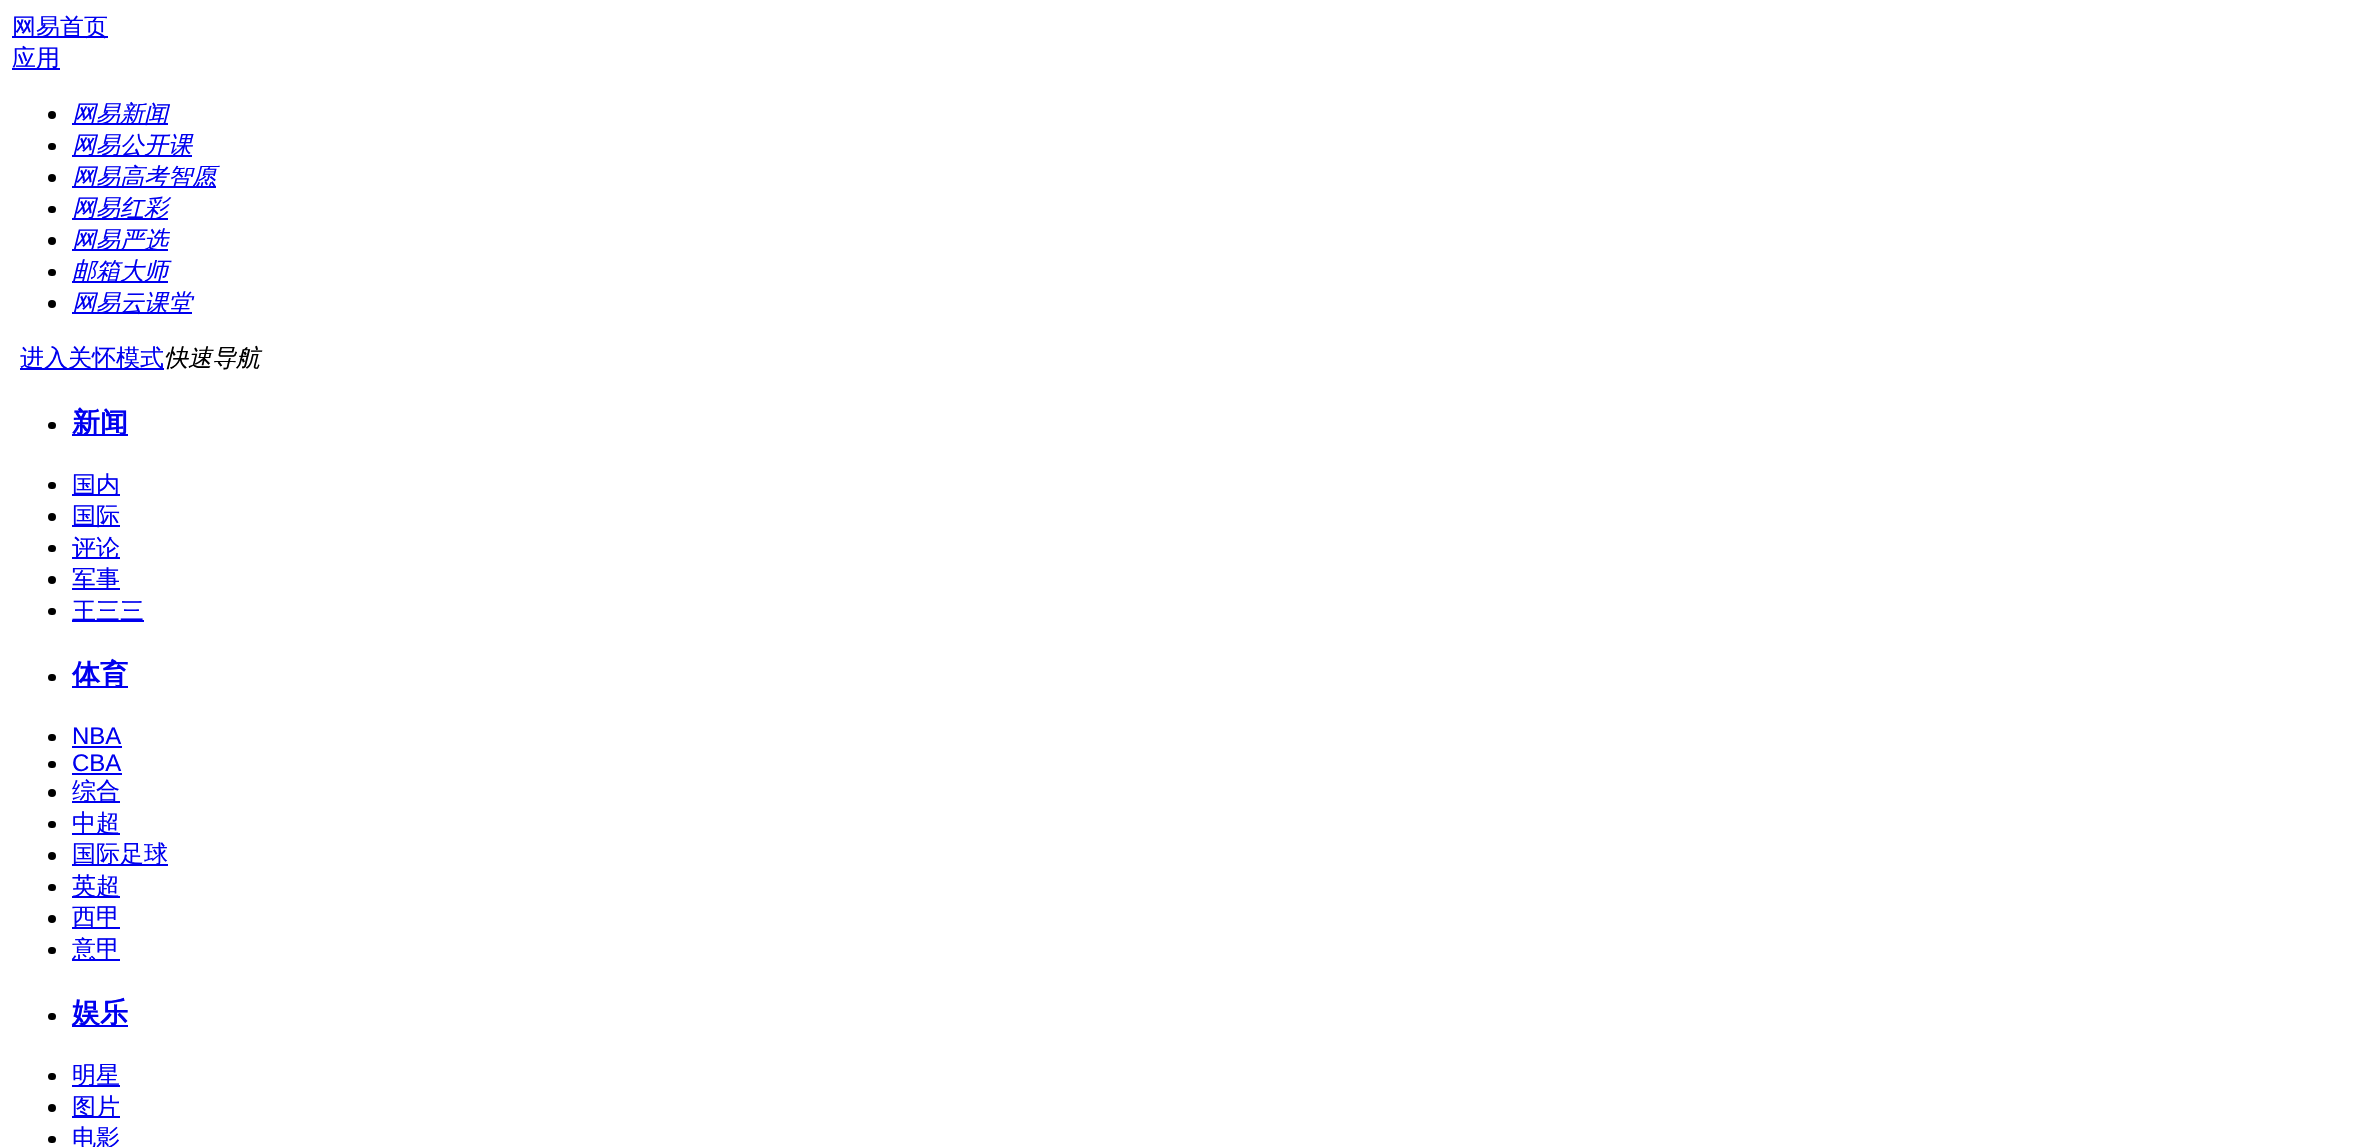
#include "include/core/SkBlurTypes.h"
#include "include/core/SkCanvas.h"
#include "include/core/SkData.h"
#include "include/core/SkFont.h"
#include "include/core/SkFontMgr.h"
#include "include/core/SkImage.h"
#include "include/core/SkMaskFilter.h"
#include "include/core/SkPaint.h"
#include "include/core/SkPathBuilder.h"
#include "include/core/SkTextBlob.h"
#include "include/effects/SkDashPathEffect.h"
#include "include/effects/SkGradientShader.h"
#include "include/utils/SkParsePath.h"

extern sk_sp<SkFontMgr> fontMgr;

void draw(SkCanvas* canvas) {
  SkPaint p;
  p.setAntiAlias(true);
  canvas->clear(SK_ColorWHITE);
  p.setColor(SkColorSetRGB(0, 0, 238));
  canvas->drawRect(SkRect::MakeLTRB(12, 36, 108, 38), p);
  canvas->drawRect(SkRect::MakeLTRB(12, 68, 60, 70), p);
  p.setColor(SK_ColorBLACK);
  canvas->drawCircle(52, 115, 4, p);
  p.setColor(SkColorSetRGB(0, 0, 238));
  canvas->drawRect(SkRect::MakeLTRB(72, 123, 168, 125), p);
  p.setColor(SK_ColorBLACK);
  canvas->drawRoundRect(SkRect::MakeLTRB(48, 143, 56, 150), 3.5f, 3.5f, p);
  p.setColor(SkColorSetRGB(0, 0, 238));
  canvas->drawRect(SkRect::MakeLTRB(72, 155, 192, 157), p);
  p.setColor(SK_ColorBLACK);
  canvas->drawCircle(52, 178, 4, p);
  p.setColor(SkColorSetRGB(0, 0, 238));
  canvas->drawRect(SkRect::MakeLTRB(72, 186, 216, 188), p);
  p.setColor(SK_ColorBLACK);
  canvas->drawRoundRect(SkRect::MakeLTRB(48, 206, 56, 213), 3.5f, 3.5f, p);
  p.setColor(SkColorSetRGB(0, 0, 238));
  canvas->drawRect(SkRect::MakeLTRB(72, 218, 168, 220), p);
  p.setColor(SK_ColorBLACK);
  canvas->drawCircle(52, 241, 4, p);
  p.setColor(SkColorSetRGB(0, 0, 238));
  canvas->drawRect(SkRect::MakeLTRB(72, 249, 168, 251), p);
  p.setColor(SK_ColorBLACK);
  canvas->drawRoundRect(SkRect::MakeLTRB(48, 269, 56, 276), 3.5f, 3.5f, p);
  p.setColor(SkColorSetRGB(0, 0, 238));
  canvas->drawRect(SkRect::MakeLTRB(72, 281, 168, 283), p);
  p.setColor(SK_ColorBLACK);
  canvas->drawCircle(52, 304, 4, p);
  p.setColor(SkColorSetRGB(0, 0, 238));
  canvas->drawRect(SkRect::MakeLTRB(72, 312, 192, 314), p);
  canvas->drawRect(SkRect::MakeLTRB(20, 368, 164, 370), p);
  p.setColor(SK_ColorBLACK);
  canvas->drawRoundRect(SkRect::MakeLTRB(48, 422, 56, 429), 3.5f, 3.5f, p);
  p.setColor(SkColorSetRGB(0, 0, 238));
  canvas->drawRect(SkRect::MakeLTRB(72, 434, 128, 436), p);
  p.setColor(SK_ColorBLACK);
  canvas->drawRoundRect(SkRect::MakeLTRB(48, 482, 56, 489), 3.5f, 3.5f, p);
  p.setColor(SkColorSetRGB(0, 0, 238));
  canvas->drawRect(SkRect::MakeLTRB(72, 494, 120, 496), p);
  p.setColor(SK_ColorBLACK);
  canvas->drawCircle(52, 517, 4, p);
  p.setColor(SkColorSetRGB(0, 0, 238));
  canvas->drawRect(SkRect::MakeLTRB(72, 525, 120, 527), p);
  p.setColor(SK_ColorBLACK);
  canvas->drawRoundRect(SkRect::MakeLTRB(48, 545, 56, 552), 3.5f, 3.5f, p);
  p.setColor(SkColorSetRGB(0, 0, 238));
  canvas->drawRect(SkRect::MakeLTRB(72, 557, 120, 559), p);
  p.setColor(SK_ColorBLACK);
  canvas->drawCircle(52, 580, 4, p);
  p.setColor(SkColorSetRGB(0, 0, 238));
  canvas->drawRect(SkRect::MakeLTRB(72, 588, 120, 590), p);
  p.setColor(SK_ColorBLACK);
  canvas->drawRoundRect(SkRect::MakeLTRB(48, 608, 56, 615), 3.5f, 3.5f, p);
  p.setColor(SkColorSetRGB(0, 0, 238));
  canvas->drawRect(SkRect::MakeLTRB(72, 620, 144, 622), p);
  p.setColor(SK_ColorBLACK);
  canvas->drawRoundRect(SkRect::MakeLTRB(48, 674, 56, 681), 3.5f, 3.5f, p);
  p.setColor(SkColorSetRGB(0, 0, 238));
  canvas->drawRect(SkRect::MakeLTRB(72, 686, 128, 688), p);
  p.setColor(SK_ColorBLACK);
  canvas->drawRoundRect(SkRect::MakeLTRB(48, 734, 56, 741), 3.5f, 3.5f, p);
  p.setColor(SkColorSetRGB(0, 0, 238));
  canvas->drawRect(SkRect::MakeLTRB(72, 746, 122, 748), p);
  p.setColor(SK_ColorBLACK);
  canvas->drawRoundRect(SkRect::MakeLTRB(48, 761, 56, 768), 3.5f, 3.5f, p);
  p.setColor(SkColorSetRGB(0, 0, 238));
  canvas->drawRect(SkRect::MakeLTRB(72, 773, 122, 775), p);
  p.setColor(SK_ColorBLACK);
  canvas->drawCircle(52, 793, 4, p);
  p.setColor(SkColorSetRGB(0, 0, 238));
  canvas->drawRect(SkRect::MakeLTRB(72, 801, 120, 803), p);
  p.setColor(SK_ColorBLACK);
  canvas->drawRoundRect(SkRect::MakeLTRB(48, 821, 56, 828), 3.5f, 3.5f, p);
  p.setColor(SkColorSetRGB(0, 0, 238));
  canvas->drawRect(SkRect::MakeLTRB(72, 833, 120, 835), p);
  p.setColor(SK_ColorBLACK);
  canvas->drawCircle(52, 856, 4, p);
  p.setColor(SkColorSetRGB(0, 0, 238));
  canvas->drawRect(SkRect::MakeLTRB(72, 864, 168, 866), p);
  p.setColor(SK_ColorBLACK);
  canvas->drawRoundRect(SkRect::MakeLTRB(48, 884, 56, 891), 3.5f, 3.5f, p);
  p.setColor(SkColorSetRGB(0, 0, 238));
  canvas->drawRect(SkRect::MakeLTRB(72, 896, 120, 898), p);
  p.setColor(SK_ColorBLACK);
  canvas->drawCircle(52, 919, 4, p);
  p.setColor(SkColorSetRGB(0, 0, 238));
  canvas->drawRect(SkRect::MakeLTRB(72, 927, 120, 929), p);
  p.setColor(SK_ColorBLACK);
  canvas->drawRoundRect(SkRect::MakeLTRB(48, 947, 56, 954), 3.5f, 3.5f, p);
  p.setColor(SkColorSetRGB(0, 0, 238));
  canvas->drawRect(SkRect::MakeLTRB(72, 959, 120, 961), p);
  p.setColor(SK_ColorBLACK);
  canvas->drawRoundRect(SkRect::MakeLTRB(48, 1013, 56, 1020), 3.5f, 3.5f, p);
  p.setColor(SkColorSetRGB(0, 0, 238));
  canvas->drawRect(SkRect::MakeLTRB(72, 1025, 128, 1027), p);
  p.setColor(SK_ColorBLACK);
  canvas->drawRoundRect(SkRect::MakeLTRB(48, 1073, 56, 1080), 3.5f, 3.5f, p);
  p.setColor(SkColorSetRGB(0, 0, 238));
  canvas->drawRect(SkRect::MakeLTRB(72, 1085, 120, 1087), p);
  p.setColor(SK_ColorBLACK);
  canvas->drawCircle(52, 1108, 4, p);
  p.setColor(SkColorSetRGB(0, 0, 238));
  canvas->drawRect(SkRect::MakeLTRB(72, 1116, 120, 1118), p);
  p.setColor(SK_ColorBLACK);
  canvas->drawRoundRect(SkRect::MakeLTRB(48, 1136, 56, 1143), 3.5f, 3.5f, p);
  SkFont font1(fontMgr->matchFamilyStyle("WenQuanYi Zen Hei", SkFontStyle(500, SkFontStyle::kNormal_Width, SkFontStyle::kUpright_Slant)), 24);
  font1.setSubpixel(true);
  p.setColor(SkColorSetRGB(0, 0, 238));
  canvas->drawString("网易首页", 12, 35, font1, p);
  canvas->drawString("应用", 12, 66, font1, p);
  SkFont font2(fontMgr->matchFamilyStyle("WenQuanYi Zen Hei", SkFontStyle(500, SkFontStyle::kNormal_Width, SkFontStyle::kItalic_Slant)), 24);
  font2.setSubpixel(true);
  canvas->drawString("网易新闻", 72, 122, font2, p);
  canvas->drawString("网易公开课", 72, 153, font2, p);
  canvas->drawString("网易高考智愿", 72, 185, font2, p);
  canvas->drawString("网易红彩", 72, 216, font2, p);
  canvas->drawString("网易严选", 72, 248, font2, p);
  canvas->drawString("邮箱大师", 72, 279, font2, p);
  canvas->drawString("网易云课堂", 72, 311, font2, p);
  canvas->drawString("进入关怀模式", 20, 366, font1, p);
  p.setColor(SK_ColorBLACK);
  canvas->drawString("快速导航", 164, 366, font2, p);
  SkFont font3(fontMgr->matchFamilyStyle("WenQuanYi Zen Hei", SkFontStyle::Bold()), 28);
  font3.setSubpixel(true);
  p.setColor(SkColorSetRGB(0, 0, 238));
  canvas->drawString("新闻", 72, 432, font3, p);
  canvas->drawString("国内", 72, 493, font1, p);
  canvas->drawString("国际", 72, 524, font1, p);
  canvas->drawString("评论", 72, 556, font1, p);
  canvas->drawString("军事", 72, 587, font1, p);
  canvas->drawString("王三三", 72, 619, font1, p);
  canvas->drawString("体育", 72, 684, font3, p);
  SkFont font4(fontMgr->matchFamilyStyle("Liberation Sans", SkFontStyle::Normal()), 24);
  font4.setSubpixel(true);
  canvas->drawString("NBA", 72, 744, font4, p);
  canvas->drawString("CBA", 72, 771, font4, p);
  canvas->drawString("综合", 72, 799, font1, p);
  canvas->drawString("中超", 72, 831, font1, p);
  canvas->drawString("国际足球", 72, 862, font1, p);
  canvas->drawString("英超", 72, 894, font1, p);
  canvas->drawString("西甲", 72, 925, font1, p);
  canvas->drawString("意甲", 72, 957, font1, p);
  canvas->drawString("娱乐", 72, 1022, font3, p);
  canvas->drawString("明星", 72, 1083, font1, p);
  canvas->drawString("图片", 72, 1115, font1, p);
  canvas->drawString("电影", 72, 1146, font1, p);
}
